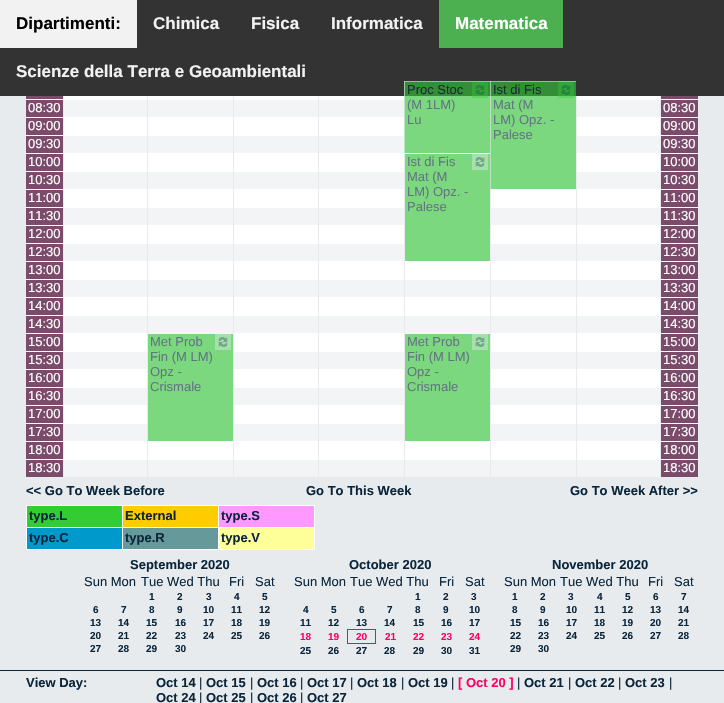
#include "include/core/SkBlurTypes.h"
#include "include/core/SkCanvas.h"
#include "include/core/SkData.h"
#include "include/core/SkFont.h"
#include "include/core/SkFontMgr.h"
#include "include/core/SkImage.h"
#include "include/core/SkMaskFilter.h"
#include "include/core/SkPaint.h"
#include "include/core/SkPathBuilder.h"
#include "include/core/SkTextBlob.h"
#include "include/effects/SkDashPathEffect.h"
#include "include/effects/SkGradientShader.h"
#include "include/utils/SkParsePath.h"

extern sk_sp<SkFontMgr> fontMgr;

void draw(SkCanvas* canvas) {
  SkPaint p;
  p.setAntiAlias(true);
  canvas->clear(SkColorSetRGB(231, 235, 238));
  p.setColor(SkColorSetRGB(123, 216, 126));
  canvas->drawRect(SkRect::MakeLTRB(491, 96, 576, 189), p);
  p.setColor(SkColorSetRGB(97, 212, 99));
  canvas->drawRect(SkRect::MakeLTRB(558, 96, 574, 98), p);
  p.setColor(SkColorSetRGB(188, 227, 193));
  canvas->drawRect(SkRect::MakeLTRB(490, 96, 491, 189), p);
  p.setColor(SkColorSetRGB(123, 216, 126));
  canvas->drawRect(SkRect::MakeLTRB(405, 96, 490, 153), p);
  p.setColor(SkColorSetRGB(97, 212, 99));
  canvas->drawRect(SkRect::MakeLTRB(472, 96, 488, 98), p);
  p.setColor(SkColorSetRGB(188, 227, 193));
  canvas->drawRect(SkRect::MakeLTRB(404, 96, 405, 153), p);
  p.setColor(SkColorSetRGB(51, 51, 51));
  canvas->drawRect(SkRect::MakeLTRB(0, 0, 724, 96), p);
  p.setColor(SkColorSetRGB(51, 143, 51));
  canvas->drawRect(SkRect::MakeLTRB(491, 82, 576, 96), p);
  p.setColor(SkColorSetRGB(51, 165, 51));
  canvas->drawRect(SkRect::MakeLTRB(558, 82, 574, 96), p);
  p.setColor(SkColorSetRGB(159, 198, 163));
  canvas->drawRect(SkRect::MakeLTRB(490, 81, 491, 96), p);
  p.setColor(SkColorSetRGB(51, 143, 51));
  canvas->drawRect(SkRect::MakeLTRB(405, 82, 490, 96), p);
  p.setColor(SkColorSetRGB(51, 165, 51));
  canvas->drawRect(SkRect::MakeLTRB(472, 82, 488, 96), p);
  p.setColor(SkColorSetRGB(159, 198, 163));
  canvas->drawRect(SkRect::MakeLTRB(404, 81, 405, 96), p);
  p.setColor(SkColorSetRGB(242, 242, 242));
  canvas->drawRect(SkRect::MakeLTRB(0, 0, 137, 48), p);
  p.setColor(SkColorSetRGB(76, 175, 80));
  canvas->drawRect(SkRect::MakeLTRB(439, 0, 563, 48), p);
  p.setColor(SkColorSetRGB(123, 75, 107));
  canvas->drawRect(SkRect::MakeLTRB(26, 96, 63, 99), p);
  p.setColor(SK_ColorWHITE);
  canvas->drawRect(SkRect::MakeLTRB(64, 96, 147, 99), p);
  canvas->drawRect(SkRect::MakeLTRB(148, 96, 233, 99), p);
  canvas->drawRect(SkRect::MakeLTRB(234, 96, 318, 99), p);
  canvas->drawRect(SkRect::MakeLTRB(319, 96, 404, 99), p);
  p.setColor(SkColorSetRGB(173, 173, 173));
  canvas->drawRect(SkRect::MakeLTRB(404, 81, 576, 82), p);
  p.setColor(SkColorSetRGB(208, 210, 212));
  canvas->drawRect(SkRect::MakeLTRB(404, 81, 405, 82), p);
  canvas->drawImageRect(SkImages::DeferredFromEncodedData(SkData::MakeFromFileName("images/1.png")), SkRect::MakeLTRB(475, 85, 485, 95), SkSamplingOptions());
  canvas->drawRect(SkRect::MakeLTRB(490, 81, 491, 82), p);
  canvas->drawImageRect(SkImages::DeferredFromEncodedData(SkData::MakeFromFileName("images/1.png")), SkRect::MakeLTRB(561, 85, 571, 95), SkSamplingOptions());
  p.setColor(SK_ColorWHITE);
  canvas->drawRect(SkRect::MakeLTRB(577, 96, 660, 99), p);
  p.setColor(SkColorSetRGB(123, 75, 107));
  canvas->drawRect(SkRect::MakeLTRB(661, 96, 698, 99), p);
  canvas->drawRect(SkRect::MakeLTRB(26, 100, 63, 117), p);
  p.setColor(SK_ColorWHITE);
  canvas->drawRect(SkRect::MakeLTRB(26, 99, 404, 100), p);
  p.setColor(SkColorSetRGB(242, 244, 246));
  canvas->drawRect(SkRect::MakeLTRB(64, 100, 147, 117), p);
  p.setColor(SkColorSetRGB(231, 235, 238));
  canvas->drawRect(SkRect::MakeLTRB(63, 99, 64, 100), p);
  p.setColor(SkColorSetRGB(242, 244, 246));
  canvas->drawRect(SkRect::MakeLTRB(148, 100, 233, 117), p);
  p.setColor(SkColorSetRGB(231, 235, 238));
  canvas->drawRect(SkRect::MakeLTRB(147, 99, 148, 100), p);
  p.setColor(SkColorSetRGB(242, 244, 246));
  canvas->drawRect(SkRect::MakeLTRB(234, 100, 318, 117), p);
  p.setColor(SkColorSetRGB(231, 235, 238));
  canvas->drawRect(SkRect::MakeLTRB(233, 99, 234, 100), p);
  p.setColor(SkColorSetRGB(242, 244, 246));
  canvas->drawRect(SkRect::MakeLTRB(319, 100, 404, 117), p);
  p.setColor(SkColorSetRGB(231, 235, 238));
  canvas->drawRect(SkRect::MakeLTRB(318, 99, 319, 100), p);
  p.setColor(SkColorSetRGB(242, 244, 246));
  canvas->drawRect(SkRect::MakeLTRB(577, 100, 660, 117), p);
  p.setColor(SK_ColorWHITE);
  canvas->drawRect(SkRect::MakeLTRB(576, 99, 698, 100), p);
  p.setColor(SkColorSetRGB(231, 235, 238));
  canvas->drawRect(SkRect::MakeLTRB(576, 99, 577, 100), p);
  p.setColor(SkColorSetRGB(123, 75, 107));
  canvas->drawRect(SkRect::MakeLTRB(661, 100, 698, 117), p);
  p.setColor(SkColorSetRGB(231, 235, 238));
  canvas->drawRect(SkRect::MakeLTRB(660, 99, 661, 100), p);
  p.setColor(SkColorSetRGB(123, 75, 107));
  canvas->drawRect(SkRect::MakeLTRB(26, 118, 63, 135), p);
  p.setColor(SK_ColorWHITE);
  canvas->drawRect(SkRect::MakeLTRB(26, 117, 63, 118), p);
  canvas->drawRect(SkRect::MakeLTRB(64, 117, 147, 135), p);
  canvas->drawRect(SkRect::MakeLTRB(148, 117, 233, 135), p);
  canvas->drawRect(SkRect::MakeLTRB(234, 117, 318, 135), p);
  canvas->drawRect(SkRect::MakeLTRB(319, 117, 404, 135), p);
  canvas->drawRect(SkRect::MakeLTRB(577, 117, 660, 135), p);
  p.setColor(SkColorSetRGB(123, 75, 107));
  canvas->drawRect(SkRect::MakeLTRB(661, 118, 698, 135), p);
  p.setColor(SK_ColorWHITE);
  canvas->drawRect(SkRect::MakeLTRB(660, 117, 698, 118), p);
  p.setColor(SkColorSetRGB(231, 235, 238));
  canvas->drawRect(SkRect::MakeLTRB(660, 117, 661, 118), p);
  p.setColor(SkColorSetRGB(123, 75, 107));
  canvas->drawRect(SkRect::MakeLTRB(26, 136, 63, 153), p);
  p.setColor(SK_ColorWHITE);
  canvas->drawRect(SkRect::MakeLTRB(26, 135, 404, 136), p);
  p.setColor(SkColorSetRGB(242, 244, 246));
  canvas->drawRect(SkRect::MakeLTRB(64, 136, 147, 153), p);
  p.setColor(SkColorSetRGB(231, 235, 238));
  canvas->drawRect(SkRect::MakeLTRB(63, 135, 64, 136), p);
  p.setColor(SkColorSetRGB(242, 244, 246));
  canvas->drawRect(SkRect::MakeLTRB(148, 136, 233, 153), p);
  p.setColor(SkColorSetRGB(231, 235, 238));
  canvas->drawRect(SkRect::MakeLTRB(147, 135, 148, 136), p);
  p.setColor(SkColorSetRGB(242, 244, 246));
  canvas->drawRect(SkRect::MakeLTRB(234, 136, 318, 153), p);
  p.setColor(SkColorSetRGB(231, 235, 238));
  canvas->drawRect(SkRect::MakeLTRB(233, 135, 234, 136), p);
  p.setColor(SkColorSetRGB(242, 244, 246));
  canvas->drawRect(SkRect::MakeLTRB(319, 136, 404, 153), p);
  p.setColor(SkColorSetRGB(231, 235, 238));
  canvas->drawRect(SkRect::MakeLTRB(318, 135, 319, 136), p);
  p.setColor(SkColorSetRGB(242, 244, 246));
  canvas->drawRect(SkRect::MakeLTRB(577, 136, 660, 153), p);
  p.setColor(SK_ColorWHITE);
  canvas->drawRect(SkRect::MakeLTRB(576, 135, 698, 136), p);
  p.setColor(SkColorSetRGB(231, 235, 238));
  canvas->drawRect(SkRect::MakeLTRB(576, 135, 577, 136), p);
  p.setColor(SkColorSetRGB(123, 75, 107));
  canvas->drawRect(SkRect::MakeLTRB(661, 136, 698, 153), p);
  p.setColor(SkColorSetRGB(231, 235, 238));
  canvas->drawRect(SkRect::MakeLTRB(660, 135, 661, 136), p);
  p.setColor(SkColorSetRGB(123, 75, 107));
  canvas->drawRect(SkRect::MakeLTRB(26, 154, 63, 171), p);
  p.setColor(SK_ColorWHITE);
  canvas->drawRect(SkRect::MakeLTRB(26, 153, 63, 154), p);
  canvas->drawRect(SkRect::MakeLTRB(64, 153, 147, 171), p);
  canvas->drawRect(SkRect::MakeLTRB(148, 153, 233, 171), p);
  canvas->drawRect(SkRect::MakeLTRB(234, 153, 318, 171), p);
  canvas->drawRect(SkRect::MakeLTRB(319, 153, 404, 171), p);
  p.setColor(SkColorSetRGB(123, 216, 126));
  canvas->drawRect(SkRect::MakeLTRB(405, 154, 490, 261), p);
  p.setColor(SkColorSetRGB(245, 247, 248));
  canvas->drawRect(SkRect::MakeLTRB(404, 153, 490, 154), p);
  p.setColor(SkColorSetRGB(231, 235, 238));
  canvas->drawRect(SkRect::MakeLTRB(404, 153, 405, 154), p);
  p.setColor(SkColorSetRGB(166, 224, 171));
  canvas->drawRect(SkRect::MakeLTRB(472, 154, 488, 170), p);
  canvas->drawImageRect(SkImages::DeferredFromEncodedData(SkData::MakeFromFileName("images/2.png")), SkRect::MakeLTRB(475, 157, 485, 167), SkSamplingOptions());
  p.setColor(SK_ColorWHITE);
  canvas->drawRect(SkRect::MakeLTRB(577, 153, 660, 171), p);
  p.setColor(SkColorSetRGB(123, 75, 107));
  canvas->drawRect(SkRect::MakeLTRB(661, 154, 698, 171), p);
  p.setColor(SK_ColorWHITE);
  canvas->drawRect(SkRect::MakeLTRB(660, 153, 698, 154), p);
  p.setColor(SkColorSetRGB(231, 235, 238));
  canvas->drawRect(SkRect::MakeLTRB(660, 153, 661, 154), p);
  p.setColor(SkColorSetRGB(123, 75, 107));
  canvas->drawRect(SkRect::MakeLTRB(26, 172, 63, 189), p);
  p.setColor(SK_ColorWHITE);
  canvas->drawRect(SkRect::MakeLTRB(26, 171, 404, 172), p);
  p.setColor(SkColorSetRGB(242, 244, 246));
  canvas->drawRect(SkRect::MakeLTRB(64, 172, 147, 189), p);
  p.setColor(SkColorSetRGB(231, 235, 238));
  canvas->drawRect(SkRect::MakeLTRB(63, 171, 64, 172), p);
  p.setColor(SkColorSetRGB(242, 244, 246));
  canvas->drawRect(SkRect::MakeLTRB(148, 172, 233, 189), p);
  p.setColor(SkColorSetRGB(231, 235, 238));
  canvas->drawRect(SkRect::MakeLTRB(147, 171, 148, 172), p);
  p.setColor(SkColorSetRGB(242, 244, 246));
  canvas->drawRect(SkRect::MakeLTRB(234, 172, 318, 189), p);
  p.setColor(SkColorSetRGB(231, 235, 238));
  canvas->drawRect(SkRect::MakeLTRB(233, 171, 234, 172), p);
  p.setColor(SkColorSetRGB(242, 244, 246));
  canvas->drawRect(SkRect::MakeLTRB(319, 172, 404, 189), p);
  p.setColor(SkColorSetRGB(231, 235, 238));
  canvas->drawRect(SkRect::MakeLTRB(318, 171, 319, 172), p);
  p.setColor(SkColorSetRGB(242, 244, 246));
  canvas->drawRect(SkRect::MakeLTRB(577, 172, 660, 189), p);
  p.setColor(SK_ColorWHITE);
  canvas->drawRect(SkRect::MakeLTRB(576, 171, 698, 172), p);
  p.setColor(SkColorSetRGB(231, 235, 238));
  canvas->drawRect(SkRect::MakeLTRB(576, 171, 577, 172), p);
  p.setColor(SkColorSetRGB(123, 75, 107));
  canvas->drawRect(SkRect::MakeLTRB(661, 172, 698, 189), p);
  p.setColor(SkColorSetRGB(231, 235, 238));
  canvas->drawRect(SkRect::MakeLTRB(660, 171, 661, 172), p);
  p.setColor(SkColorSetRGB(123, 75, 107));
  canvas->drawRect(SkRect::MakeLTRB(26, 190, 63, 207), p);
  p.setColor(SK_ColorWHITE);
  canvas->drawRect(SkRect::MakeLTRB(26, 189, 63, 190), p);
  canvas->drawRect(SkRect::MakeLTRB(64, 189, 147, 207), p);
  canvas->drawRect(SkRect::MakeLTRB(148, 189, 233, 207), p);
  canvas->drawRect(SkRect::MakeLTRB(234, 189, 318, 207), p);
  canvas->drawRect(SkRect::MakeLTRB(319, 189, 404, 207), p);
  canvas->drawRect(SkRect::MakeLTRB(491, 189, 576, 207), p);
  canvas->drawRect(SkRect::MakeLTRB(577, 189, 660, 207), p);
  p.setColor(SkColorSetRGB(123, 75, 107));
  canvas->drawRect(SkRect::MakeLTRB(661, 190, 698, 207), p);
  p.setColor(SK_ColorWHITE);
  canvas->drawRect(SkRect::MakeLTRB(660, 189, 698, 190), p);
  p.setColor(SkColorSetRGB(231, 235, 238));
  canvas->drawRect(SkRect::MakeLTRB(660, 189, 661, 190), p);
  p.setColor(SkColorSetRGB(242, 244, 246));
  canvas->drawRect(SkRect::MakeLTRB(64, 208, 147, 225), p);
  p.setColor(SK_ColorWHITE);
  canvas->drawRect(SkRect::MakeLTRB(26, 207, 404, 208), p);
  p.setColor(SkColorSetRGB(231, 235, 238));
  canvas->drawRect(SkRect::MakeLTRB(63, 207, 64, 208), p);
  p.setColor(SkColorSetRGB(242, 244, 246));
  canvas->drawRect(SkRect::MakeLTRB(148, 208, 233, 225), p);
  p.setColor(SkColorSetRGB(231, 235, 238));
  canvas->drawRect(SkRect::MakeLTRB(147, 207, 148, 208), p);
  p.setColor(SkColorSetRGB(242, 244, 246));
  canvas->drawRect(SkRect::MakeLTRB(234, 208, 318, 225), p);
  p.setColor(SkColorSetRGB(231, 235, 238));
  canvas->drawRect(SkRect::MakeLTRB(233, 207, 234, 208), p);
  p.setColor(SkColorSetRGB(242, 244, 246));
  canvas->drawRect(SkRect::MakeLTRB(319, 208, 404, 225), p);
  p.setColor(SkColorSetRGB(231, 235, 238));
  canvas->drawRect(SkRect::MakeLTRB(318, 207, 319, 208), p);
  p.setColor(SkColorSetRGB(242, 244, 246));
  canvas->drawRect(SkRect::MakeLTRB(491, 208, 576, 225), p);
  p.setColor(SK_ColorWHITE);
  canvas->drawRect(SkRect::MakeLTRB(490, 207, 698, 208), p);
  p.setColor(SkColorSetRGB(231, 235, 238));
  canvas->drawRect(SkRect::MakeLTRB(490, 207, 491, 208), p);
  p.setColor(SkColorSetRGB(123, 75, 107));
  canvas->drawRect(SkRect::MakeLTRB(26, 208, 63, 225), p);
  p.setColor(SkColorSetRGB(242, 244, 246));
  canvas->drawRect(SkRect::MakeLTRB(577, 208, 660, 225), p);
  p.setColor(SkColorSetRGB(231, 235, 238));
  canvas->drawRect(SkRect::MakeLTRB(576, 207, 577, 208), p);
  p.setColor(SkColorSetRGB(123, 75, 107));
  canvas->drawRect(SkRect::MakeLTRB(661, 208, 698, 225), p);
  p.setColor(SkColorSetRGB(231, 235, 238));
  canvas->drawRect(SkRect::MakeLTRB(660, 207, 661, 208), p);
  p.setColor(SkColorSetRGB(123, 75, 107));
  canvas->drawRect(SkRect::MakeLTRB(26, 226, 63, 243), p);
  p.setColor(SK_ColorWHITE);
  canvas->drawRect(SkRect::MakeLTRB(26, 225, 63, 226), p);
  canvas->drawRect(SkRect::MakeLTRB(64, 225, 147, 243), p);
  canvas->drawRect(SkRect::MakeLTRB(148, 225, 233, 243), p);
  canvas->drawRect(SkRect::MakeLTRB(234, 225, 318, 243), p);
  canvas->drawRect(SkRect::MakeLTRB(319, 225, 404, 243), p);
  canvas->drawRect(SkRect::MakeLTRB(491, 225, 576, 243), p);
  canvas->drawRect(SkRect::MakeLTRB(577, 225, 660, 243), p);
  p.setColor(SkColorSetRGB(123, 75, 107));
  canvas->drawRect(SkRect::MakeLTRB(661, 226, 698, 243), p);
  p.setColor(SK_ColorWHITE);
  canvas->drawRect(SkRect::MakeLTRB(660, 225, 698, 226), p);
  p.setColor(SkColorSetRGB(231, 235, 238));
  canvas->drawRect(SkRect::MakeLTRB(660, 225, 661, 226), p);
  p.setColor(SkColorSetRGB(242, 244, 246));
  canvas->drawRect(SkRect::MakeLTRB(64, 244, 147, 261), p);
  p.setColor(SK_ColorWHITE);
  canvas->drawRect(SkRect::MakeLTRB(26, 243, 404, 244), p);
  p.setColor(SkColorSetRGB(231, 235, 238));
  canvas->drawRect(SkRect::MakeLTRB(63, 243, 64, 244), p);
  p.setColor(SkColorSetRGB(242, 244, 246));
  canvas->drawRect(SkRect::MakeLTRB(148, 244, 233, 261), p);
  p.setColor(SkColorSetRGB(231, 235, 238));
  canvas->drawRect(SkRect::MakeLTRB(147, 243, 148, 244), p);
  p.setColor(SkColorSetRGB(242, 244, 246));
  canvas->drawRect(SkRect::MakeLTRB(234, 244, 318, 261), p);
  p.setColor(SkColorSetRGB(231, 235, 238));
  canvas->drawRect(SkRect::MakeLTRB(233, 243, 234, 244), p);
  p.setColor(SkColorSetRGB(242, 244, 246));
  canvas->drawRect(SkRect::MakeLTRB(319, 244, 404, 261), p);
  p.setColor(SkColorSetRGB(231, 235, 238));
  canvas->drawRect(SkRect::MakeLTRB(318, 243, 319, 244), p);
  p.setColor(SkColorSetRGB(242, 244, 246));
  canvas->drawRect(SkRect::MakeLTRB(491, 244, 576, 261), p);
  p.setColor(SK_ColorWHITE);
  canvas->drawRect(SkRect::MakeLTRB(490, 243, 698, 244), p);
  p.setColor(SkColorSetRGB(231, 235, 238));
  canvas->drawRect(SkRect::MakeLTRB(490, 243, 491, 244), p);
  p.setColor(SkColorSetRGB(123, 75, 107));
  canvas->drawRect(SkRect::MakeLTRB(26, 244, 63, 261), p);
  p.setColor(SkColorSetRGB(242, 244, 246));
  canvas->drawRect(SkRect::MakeLTRB(577, 244, 660, 261), p);
  p.setColor(SkColorSetRGB(231, 235, 238));
  canvas->drawRect(SkRect::MakeLTRB(576, 243, 577, 244), p);
  p.setColor(SkColorSetRGB(123, 75, 107));
  canvas->drawRect(SkRect::MakeLTRB(661, 244, 698, 261), p);
  p.setColor(SkColorSetRGB(231, 235, 238));
  canvas->drawRect(SkRect::MakeLTRB(660, 243, 661, 244), p);
  p.setColor(SkColorSetRGB(123, 75, 107));
  canvas->drawRect(SkRect::MakeLTRB(26, 262, 63, 279), p);
  p.setColor(SK_ColorWHITE);
  canvas->drawRect(SkRect::MakeLTRB(26, 261, 63, 262), p);
  canvas->drawRect(SkRect::MakeLTRB(64, 261, 147, 279), p);
  canvas->drawRect(SkRect::MakeLTRB(148, 261, 233, 279), p);
  canvas->drawRect(SkRect::MakeLTRB(234, 261, 318, 279), p);
  canvas->drawRect(SkRect::MakeLTRB(319, 261, 404, 279), p);
  canvas->drawRect(SkRect::MakeLTRB(405, 261, 490, 279), p);
  canvas->drawRect(SkRect::MakeLTRB(491, 261, 576, 279), p);
  canvas->drawRect(SkRect::MakeLTRB(577, 261, 660, 279), p);
  p.setColor(SkColorSetRGB(123, 75, 107));
  canvas->drawRect(SkRect::MakeLTRB(661, 262, 698, 279), p);
  p.setColor(SK_ColorWHITE);
  canvas->drawRect(SkRect::MakeLTRB(660, 261, 698, 262), p);
  p.setColor(SkColorSetRGB(231, 235, 238));
  canvas->drawRect(SkRect::MakeLTRB(660, 261, 661, 262), p);
  p.setColor(SkColorSetRGB(123, 75, 107));
  canvas->drawRect(SkRect::MakeLTRB(26, 280, 63, 297), p);
  p.setColor(SK_ColorWHITE);
  canvas->drawRect(SkRect::MakeLTRB(26, 279, 698, 280), p);
  p.setColor(SkColorSetRGB(242, 244, 246));
  canvas->drawRect(SkRect::MakeLTRB(64, 280, 147, 297), p);
  p.setColor(SkColorSetRGB(231, 235, 238));
  canvas->drawRect(SkRect::MakeLTRB(63, 279, 64, 280), p);
  p.setColor(SkColorSetRGB(242, 244, 246));
  canvas->drawRect(SkRect::MakeLTRB(148, 280, 233, 297), p);
  p.setColor(SkColorSetRGB(231, 235, 238));
  canvas->drawRect(SkRect::MakeLTRB(147, 279, 148, 280), p);
  p.setColor(SkColorSetRGB(242, 244, 246));
  canvas->drawRect(SkRect::MakeLTRB(234, 280, 318, 297), p);
  p.setColor(SkColorSetRGB(231, 235, 238));
  canvas->drawRect(SkRect::MakeLTRB(233, 279, 234, 280), p);
  p.setColor(SkColorSetRGB(242, 244, 246));
  canvas->drawRect(SkRect::MakeLTRB(319, 280, 404, 297), p);
  p.setColor(SkColorSetRGB(231, 235, 238));
  canvas->drawRect(SkRect::MakeLTRB(318, 279, 319, 280), p);
  p.setColor(SkColorSetRGB(242, 244, 246));
  canvas->drawRect(SkRect::MakeLTRB(405, 280, 490, 297), p);
  p.setColor(SkColorSetRGB(231, 235, 238));
  canvas->drawRect(SkRect::MakeLTRB(404, 279, 405, 280), p);
  p.setColor(SkColorSetRGB(242, 244, 246));
  canvas->drawRect(SkRect::MakeLTRB(491, 280, 576, 297), p);
  p.setColor(SkColorSetRGB(231, 235, 238));
  canvas->drawRect(SkRect::MakeLTRB(490, 279, 491, 280), p);
  p.setColor(SkColorSetRGB(242, 244, 246));
  canvas->drawRect(SkRect::MakeLTRB(577, 280, 660, 297), p);
  p.setColor(SkColorSetRGB(231, 235, 238));
  canvas->drawRect(SkRect::MakeLTRB(576, 279, 577, 280), p);
  p.setColor(SkColorSetRGB(123, 75, 107));
  canvas->drawRect(SkRect::MakeLTRB(661, 280, 698, 297), p);
  p.setColor(SkColorSetRGB(231, 235, 238));
  canvas->drawRect(SkRect::MakeLTRB(660, 279, 661, 280), p);
  p.setColor(SkColorSetRGB(123, 75, 107));
  canvas->drawRect(SkRect::MakeLTRB(26, 298, 63, 315), p);
  p.setColor(SK_ColorWHITE);
  canvas->drawRect(SkRect::MakeLTRB(26, 297, 63, 298), p);
  canvas->drawRect(SkRect::MakeLTRB(64, 297, 147, 315), p);
  canvas->drawRect(SkRect::MakeLTRB(148, 297, 233, 315), p);
  canvas->drawRect(SkRect::MakeLTRB(234, 297, 318, 315), p);
  canvas->drawRect(SkRect::MakeLTRB(319, 297, 404, 315), p);
  canvas->drawRect(SkRect::MakeLTRB(405, 297, 490, 315), p);
  canvas->drawRect(SkRect::MakeLTRB(491, 297, 576, 315), p);
  canvas->drawRect(SkRect::MakeLTRB(577, 297, 660, 315), p);
  p.setColor(SkColorSetRGB(123, 75, 107));
  canvas->drawRect(SkRect::MakeLTRB(661, 298, 698, 315), p);
  p.setColor(SK_ColorWHITE);
  canvas->drawRect(SkRect::MakeLTRB(660, 297, 698, 298), p);
  p.setColor(SkColorSetRGB(231, 235, 238));
  canvas->drawRect(SkRect::MakeLTRB(660, 297, 661, 298), p);
  p.setColor(SkColorSetRGB(123, 75, 107));
  canvas->drawRect(SkRect::MakeLTRB(26, 316, 63, 333), p);
  p.setColor(SK_ColorWHITE);
  canvas->drawRect(SkRect::MakeLTRB(26, 315, 698, 316), p);
  p.setColor(SkColorSetRGB(242, 244, 246));
  canvas->drawRect(SkRect::MakeLTRB(64, 316, 147, 333), p);
  p.setColor(SkColorSetRGB(231, 235, 238));
  canvas->drawRect(SkRect::MakeLTRB(63, 315, 64, 316), p);
  p.setColor(SkColorSetRGB(242, 244, 246));
  canvas->drawRect(SkRect::MakeLTRB(148, 316, 233, 333), p);
  p.setColor(SkColorSetRGB(231, 235, 238));
  canvas->drawRect(SkRect::MakeLTRB(147, 315, 148, 316), p);
  p.setColor(SkColorSetRGB(242, 244, 246));
  canvas->drawRect(SkRect::MakeLTRB(234, 316, 318, 333), p);
  p.setColor(SkColorSetRGB(231, 235, 238));
  canvas->drawRect(SkRect::MakeLTRB(233, 315, 234, 316), p);
  p.setColor(SkColorSetRGB(242, 244, 246));
  canvas->drawRect(SkRect::MakeLTRB(319, 316, 404, 333), p);
  p.setColor(SkColorSetRGB(231, 235, 238));
  canvas->drawRect(SkRect::MakeLTRB(318, 315, 319, 316), p);
  p.setColor(SkColorSetRGB(242, 244, 246));
  canvas->drawRect(SkRect::MakeLTRB(405, 316, 490, 333), p);
  p.setColor(SkColorSetRGB(231, 235, 238));
  canvas->drawRect(SkRect::MakeLTRB(404, 315, 405, 316), p);
  p.setColor(SkColorSetRGB(242, 244, 246));
  canvas->drawRect(SkRect::MakeLTRB(491, 316, 576, 333), p);
  p.setColor(SkColorSetRGB(231, 235, 238));
  canvas->drawRect(SkRect::MakeLTRB(490, 315, 491, 316), p);
  p.setColor(SkColorSetRGB(242, 244, 246));
  canvas->drawRect(SkRect::MakeLTRB(577, 316, 660, 333), p);
  p.setColor(SkColorSetRGB(231, 235, 238));
  canvas->drawRect(SkRect::MakeLTRB(576, 315, 577, 316), p);
  p.setColor(SkColorSetRGB(123, 75, 107));
  canvas->drawRect(SkRect::MakeLTRB(661, 316, 698, 333), p);
  p.setColor(SkColorSetRGB(231, 235, 238));
  canvas->drawRect(SkRect::MakeLTRB(660, 315, 661, 316), p);
  p.setColor(SkColorSetRGB(123, 75, 107));
  canvas->drawRect(SkRect::MakeLTRB(26, 334, 63, 351), p);
  p.setColor(SK_ColorWHITE);
  canvas->drawRect(SkRect::MakeLTRB(26, 333, 63, 334), p);
  canvas->drawRect(SkRect::MakeLTRB(64, 333, 147, 351), p);
  p.setColor(SkColorSetRGB(123, 216, 126));
  canvas->drawRect(SkRect::MakeLTRB(148, 334, 233, 441), p);
  p.setColor(SkColorSetRGB(245, 247, 248));
  canvas->drawRect(SkRect::MakeLTRB(147, 333, 233, 334), p);
  p.setColor(SkColorSetRGB(231, 235, 238));
  canvas->drawRect(SkRect::MakeLTRB(147, 333, 148, 334), p);
  p.setColor(SkColorSetRGB(166, 224, 171));
  canvas->drawRect(SkRect::MakeLTRB(215, 334, 231, 350), p);
  canvas->drawImageRect(SkImages::DeferredFromEncodedData(SkData::MakeFromFileName("images/2.png")), SkRect::MakeLTRB(218, 337, 228, 347), SkSamplingOptions());
  p.setColor(SK_ColorWHITE);
  canvas->drawRect(SkRect::MakeLTRB(234, 333, 318, 351), p);
  canvas->drawRect(SkRect::MakeLTRB(319, 333, 404, 351), p);
  p.setColor(SkColorSetRGB(123, 216, 126));
  canvas->drawRect(SkRect::MakeLTRB(405, 334, 490, 441), p);
  p.setColor(SkColorSetRGB(245, 247, 248));
  canvas->drawRect(SkRect::MakeLTRB(404, 333, 490, 334), p);
  p.setColor(SkColorSetRGB(231, 235, 238));
  canvas->drawRect(SkRect::MakeLTRB(404, 333, 405, 334), p);
  p.setColor(SkColorSetRGB(166, 224, 171));
  canvas->drawRect(SkRect::MakeLTRB(472, 334, 488, 350), p);
  canvas->drawImageRect(SkImages::DeferredFromEncodedData(SkData::MakeFromFileName("images/2.png")), SkRect::MakeLTRB(475, 337, 485, 347), SkSamplingOptions());
  p.setColor(SK_ColorWHITE);
  canvas->drawRect(SkRect::MakeLTRB(491, 333, 576, 351), p);
  canvas->drawRect(SkRect::MakeLTRB(577, 333, 660, 351), p);
  p.setColor(SkColorSetRGB(123, 75, 107));
  canvas->drawRect(SkRect::MakeLTRB(661, 334, 698, 351), p);
  p.setColor(SK_ColorWHITE);
  canvas->drawRect(SkRect::MakeLTRB(660, 333, 698, 334), p);
  p.setColor(SkColorSetRGB(231, 235, 238));
  canvas->drawRect(SkRect::MakeLTRB(660, 333, 661, 334), p);
  p.setColor(SkColorSetRGB(242, 244, 246));
  canvas->drawRect(SkRect::MakeLTRB(64, 352, 147, 369), p);
  p.setColor(SK_ColorWHITE);
  canvas->drawRect(SkRect::MakeLTRB(26, 351, 147, 352), p);
  p.setColor(SkColorSetRGB(231, 235, 238));
  canvas->drawRect(SkRect::MakeLTRB(63, 351, 64, 352), p);
  p.setColor(SkColorSetRGB(242, 244, 246));
  canvas->drawRect(SkRect::MakeLTRB(234, 352, 318, 369), p);
  p.setColor(SK_ColorWHITE);
  canvas->drawRect(SkRect::MakeLTRB(233, 351, 404, 352), p);
  p.setColor(SkColorSetRGB(231, 235, 238));
  canvas->drawRect(SkRect::MakeLTRB(233, 351, 234, 352), p);
  p.setColor(SkColorSetRGB(242, 244, 246));
  canvas->drawRect(SkRect::MakeLTRB(319, 352, 404, 369), p);
  p.setColor(SkColorSetRGB(231, 235, 238));
  canvas->drawRect(SkRect::MakeLTRB(318, 351, 319, 352), p);
  p.setColor(SkColorSetRGB(242, 244, 246));
  canvas->drawRect(SkRect::MakeLTRB(491, 352, 576, 369), p);
  p.setColor(SK_ColorWHITE);
  canvas->drawRect(SkRect::MakeLTRB(490, 351, 698, 352), p);
  p.setColor(SkColorSetRGB(231, 235, 238));
  canvas->drawRect(SkRect::MakeLTRB(490, 351, 491, 352), p);
  p.setColor(SkColorSetRGB(123, 75, 107));
  canvas->drawRect(SkRect::MakeLTRB(26, 352, 63, 369), p);
  p.setColor(SkColorSetRGB(242, 244, 246));
  canvas->drawRect(SkRect::MakeLTRB(577, 352, 660, 369), p);
  p.setColor(SkColorSetRGB(231, 235, 238));
  canvas->drawRect(SkRect::MakeLTRB(576, 351, 577, 352), p);
  p.setColor(SkColorSetRGB(123, 75, 107));
  canvas->drawRect(SkRect::MakeLTRB(661, 352, 698, 369), p);
  p.setColor(SkColorSetRGB(231, 235, 238));
  canvas->drawRect(SkRect::MakeLTRB(660, 351, 661, 352), p);
  p.setColor(SkColorSetRGB(123, 75, 107));
  canvas->drawRect(SkRect::MakeLTRB(26, 370, 63, 387), p);
  p.setColor(SK_ColorWHITE);
  canvas->drawRect(SkRect::MakeLTRB(26, 369, 63, 370), p);
  canvas->drawRect(SkRect::MakeLTRB(64, 369, 147, 387), p);
  canvas->drawRect(SkRect::MakeLTRB(234, 369, 318, 387), p);
  canvas->drawRect(SkRect::MakeLTRB(319, 369, 404, 387), p);
  canvas->drawRect(SkRect::MakeLTRB(491, 369, 576, 387), p);
  canvas->drawRect(SkRect::MakeLTRB(577, 369, 660, 387), p);
  p.setColor(SkColorSetRGB(123, 75, 107));
  canvas->drawRect(SkRect::MakeLTRB(661, 370, 698, 387), p);
  p.setColor(SK_ColorWHITE);
  canvas->drawRect(SkRect::MakeLTRB(660, 369, 698, 370), p);
  p.setColor(SkColorSetRGB(231, 235, 238));
  canvas->drawRect(SkRect::MakeLTRB(660, 369, 661, 370), p);
  p.setColor(SkColorSetRGB(242, 244, 246));
  canvas->drawRect(SkRect::MakeLTRB(64, 388, 147, 405), p);
  p.setColor(SK_ColorWHITE);
  canvas->drawRect(SkRect::MakeLTRB(26, 387, 147, 388), p);
  p.setColor(SkColorSetRGB(231, 235, 238));
  canvas->drawRect(SkRect::MakeLTRB(63, 387, 64, 388), p);
  p.setColor(SkColorSetRGB(242, 244, 246));
  canvas->drawRect(SkRect::MakeLTRB(234, 388, 318, 405), p);
  p.setColor(SK_ColorWHITE);
  canvas->drawRect(SkRect::MakeLTRB(233, 387, 404, 388), p);
  p.setColor(SkColorSetRGB(231, 235, 238));
  canvas->drawRect(SkRect::MakeLTRB(233, 387, 234, 388), p);
  p.setColor(SkColorSetRGB(242, 244, 246));
  canvas->drawRect(SkRect::MakeLTRB(319, 388, 404, 405), p);
  p.setColor(SkColorSetRGB(231, 235, 238));
  canvas->drawRect(SkRect::MakeLTRB(318, 387, 319, 388), p);
  p.setColor(SkColorSetRGB(242, 244, 246));
  canvas->drawRect(SkRect::MakeLTRB(491, 388, 576, 405), p);
  p.setColor(SK_ColorWHITE);
  canvas->drawRect(SkRect::MakeLTRB(490, 387, 698, 388), p);
  p.setColor(SkColorSetRGB(231, 235, 238));
  canvas->drawRect(SkRect::MakeLTRB(490, 387, 491, 388), p);
  p.setColor(SkColorSetRGB(123, 75, 107));
  canvas->drawRect(SkRect::MakeLTRB(26, 388, 63, 405), p);
  p.setColor(SkColorSetRGB(242, 244, 246));
  canvas->drawRect(SkRect::MakeLTRB(577, 388, 660, 405), p);
  p.setColor(SkColorSetRGB(231, 235, 238));
  canvas->drawRect(SkRect::MakeLTRB(576, 387, 577, 388), p);
  p.setColor(SkColorSetRGB(123, 75, 107));
  canvas->drawRect(SkRect::MakeLTRB(661, 388, 698, 405), p);
  p.setColor(SkColorSetRGB(231, 235, 238));
  canvas->drawRect(SkRect::MakeLTRB(660, 387, 661, 388), p);
  p.setColor(SkColorSetRGB(123, 75, 107));
  canvas->drawRect(SkRect::MakeLTRB(26, 406, 63, 423), p);
  p.setColor(SK_ColorWHITE);
  canvas->drawRect(SkRect::MakeLTRB(26, 405, 63, 406), p);
  canvas->drawRect(SkRect::MakeLTRB(64, 405, 147, 423), p);
  canvas->drawRect(SkRect::MakeLTRB(234, 405, 318, 423), p);
  canvas->drawRect(SkRect::MakeLTRB(319, 405, 404, 423), p);
  canvas->drawRect(SkRect::MakeLTRB(491, 405, 576, 423), p);
  canvas->drawRect(SkRect::MakeLTRB(577, 405, 660, 423), p);
  p.setColor(SkColorSetRGB(123, 75, 107));
  canvas->drawRect(SkRect::MakeLTRB(661, 406, 698, 423), p);
  p.setColor(SK_ColorWHITE);
  canvas->drawRect(SkRect::MakeLTRB(660, 405, 698, 406), p);
  p.setColor(SkColorSetRGB(231, 235, 238));
  canvas->drawRect(SkRect::MakeLTRB(660, 405, 661, 406), p);
  p.setColor(SkColorSetRGB(242, 244, 246));
  canvas->drawRect(SkRect::MakeLTRB(64, 424, 147, 441), p);
  p.setColor(SK_ColorWHITE);
  canvas->drawRect(SkRect::MakeLTRB(26, 423, 147, 424), p);
  p.setColor(SkColorSetRGB(231, 235, 238));
  canvas->drawRect(SkRect::MakeLTRB(63, 423, 64, 424), p);
  p.setColor(SkColorSetRGB(242, 244, 246));
  canvas->drawRect(SkRect::MakeLTRB(234, 424, 318, 441), p);
  p.setColor(SK_ColorWHITE);
  canvas->drawRect(SkRect::MakeLTRB(233, 423, 404, 424), p);
  p.setColor(SkColorSetRGB(231, 235, 238));
  canvas->drawRect(SkRect::MakeLTRB(233, 423, 234, 424), p);
  p.setColor(SkColorSetRGB(242, 244, 246));
  canvas->drawRect(SkRect::MakeLTRB(319, 424, 404, 441), p);
  p.setColor(SkColorSetRGB(231, 235, 238));
  canvas->drawRect(SkRect::MakeLTRB(318, 423, 319, 424), p);
  p.setColor(SkColorSetRGB(242, 244, 246));
  canvas->drawRect(SkRect::MakeLTRB(491, 424, 576, 441), p);
  p.setColor(SK_ColorWHITE);
  canvas->drawRect(SkRect::MakeLTRB(490, 423, 698, 424), p);
  p.setColor(SkColorSetRGB(231, 235, 238));
  canvas->drawRect(SkRect::MakeLTRB(490, 423, 491, 424), p);
  p.setColor(SkColorSetRGB(123, 75, 107));
  canvas->drawRect(SkRect::MakeLTRB(26, 424, 63, 441), p);
  p.setColor(SkColorSetRGB(242, 244, 246));
  canvas->drawRect(SkRect::MakeLTRB(577, 424, 660, 441), p);
  p.setColor(SkColorSetRGB(231, 235, 238));
  canvas->drawRect(SkRect::MakeLTRB(576, 423, 577, 424), p);
  p.setColor(SkColorSetRGB(123, 75, 107));
  canvas->drawRect(SkRect::MakeLTRB(661, 424, 698, 441), p);
  p.setColor(SkColorSetRGB(231, 235, 238));
  canvas->drawRect(SkRect::MakeLTRB(660, 423, 661, 424), p);
  p.setColor(SkColorSetRGB(123, 75, 107));
  canvas->drawRect(SkRect::MakeLTRB(26, 442, 63, 459), p);
  p.setColor(SK_ColorWHITE);
  canvas->drawRect(SkRect::MakeLTRB(26, 441, 63, 442), p);
  canvas->drawRect(SkRect::MakeLTRB(64, 441, 147, 459), p);
  canvas->drawRect(SkRect::MakeLTRB(148, 441, 233, 459), p);
  canvas->drawRect(SkRect::MakeLTRB(234, 441, 318, 459), p);
  canvas->drawRect(SkRect::MakeLTRB(319, 441, 404, 459), p);
  canvas->drawRect(SkRect::MakeLTRB(405, 441, 490, 459), p);
  canvas->drawRect(SkRect::MakeLTRB(491, 441, 576, 459), p);
  canvas->drawRect(SkRect::MakeLTRB(577, 441, 660, 459), p);
  p.setColor(SkColorSetRGB(123, 75, 107));
  canvas->drawRect(SkRect::MakeLTRB(661, 442, 698, 459), p);
  p.setColor(SK_ColorWHITE);
  canvas->drawRect(SkRect::MakeLTRB(660, 441, 698, 442), p);
  p.setColor(SkColorSetRGB(231, 235, 238));
  canvas->drawRect(SkRect::MakeLTRB(660, 441, 661, 442), p);
  p.setColor(SkColorSetRGB(123, 75, 107));
  canvas->drawRect(SkRect::MakeLTRB(26, 460, 63, 477), p);
  p.setColor(SK_ColorWHITE);
  canvas->drawRect(SkRect::MakeLTRB(26, 459, 698, 460), p);
  p.setColor(SkColorSetRGB(242, 244, 246));
  canvas->drawRect(SkRect::MakeLTRB(64, 460, 147, 477), p);
  p.setColor(SkColorSetRGB(231, 235, 238));
  canvas->drawRect(SkRect::MakeLTRB(63, 459, 64, 460), p);
  p.setColor(SkColorSetRGB(242, 244, 246));
  canvas->drawRect(SkRect::MakeLTRB(148, 460, 233, 477), p);
  p.setColor(SkColorSetRGB(231, 235, 238));
  canvas->drawRect(SkRect::MakeLTRB(147, 459, 148, 460), p);
  p.setColor(SkColorSetRGB(242, 244, 246));
  canvas->drawRect(SkRect::MakeLTRB(234, 460, 318, 477), p);
  p.setColor(SkColorSetRGB(231, 235, 238));
  canvas->drawRect(SkRect::MakeLTRB(233, 459, 234, 460), p);
  p.setColor(SkColorSetRGB(242, 244, 246));
  canvas->drawRect(SkRect::MakeLTRB(319, 460, 404, 477), p);
  p.setColor(SkColorSetRGB(231, 235, 238));
  canvas->drawRect(SkRect::MakeLTRB(318, 459, 319, 460), p);
  p.setColor(SkColorSetRGB(242, 244, 246));
  canvas->drawRect(SkRect::MakeLTRB(405, 460, 490, 477), p);
  p.setColor(SkColorSetRGB(231, 235, 238));
  canvas->drawRect(SkRect::MakeLTRB(404, 459, 405, 460), p);
  p.setColor(SkColorSetRGB(242, 244, 246));
  canvas->drawRect(SkRect::MakeLTRB(491, 460, 576, 477), p);
  p.setColor(SkColorSetRGB(231, 235, 238));
  canvas->drawRect(SkRect::MakeLTRB(490, 459, 491, 460), p);
  p.setColor(SkColorSetRGB(242, 244, 246));
  canvas->drawRect(SkRect::MakeLTRB(577, 460, 660, 477), p);
  p.setColor(SkColorSetRGB(231, 235, 238));
  canvas->drawRect(SkRect::MakeLTRB(576, 459, 577, 460), p);
  p.setColor(SkColorSetRGB(123, 75, 107));
  canvas->drawRect(SkRect::MakeLTRB(661, 460, 698, 477), p);
  p.setColor(SkColorSetRGB(231, 235, 238));
  canvas->drawRect(SkRect::MakeLTRB(660, 459, 661, 460), p);
  p.setColor(SkColorSetRGB(51, 204, 51));
  canvas->drawRect(SkRect::MakeLTRB(27, 506, 122, 527), p);
  p.setColor(SK_ColorWHITE);
  canvas->drawRect(SkRect::MakeLTRB(218, 505, 315, 506), p);
  canvas->drawRect(SkRect::MakeLTRB(218, 527, 315, 528), p);
  canvas->drawRect(SkRect::MakeLTRB(314, 527, 315, 550), p);
  canvas->drawRect(SkRect::MakeLTRB(218, 549, 315, 550), p);
  canvas->drawRect(SkRect::MakeLTRB(218, 527, 219, 550), p);
  canvas->drawRect(SkRect::MakeLTRB(122, 527, 219, 528), p);
  canvas->drawRect(SkRect::MakeLTRB(218, 505, 219, 528), p);
  canvas->drawRect(SkRect::MakeLTRB(122, 505, 219, 506), p);
  canvas->drawRect(SkRect::MakeLTRB(122, 549, 219, 550), p);
  canvas->drawRect(SkRect::MakeLTRB(122, 527, 123, 550), p);
  canvas->drawRect(SkRect::MakeLTRB(26, 527, 123, 528), p);
  canvas->drawRect(SkRect::MakeLTRB(122, 505, 123, 528), p);
  canvas->drawRect(SkRect::MakeLTRB(26, 505, 123, 506), p);
  canvas->drawRect(SkRect::MakeLTRB(26, 549, 123, 550), p);
  canvas->drawRect(SkRect::MakeLTRB(26, 527, 27, 550), p);
  canvas->drawRect(SkRect::MakeLTRB(26, 505, 27, 528), p);
  p.setColor(SkColorSetRGB(255, 204, 0));
  canvas->drawRect(SkRect::MakeLTRB(123, 506, 218, 527), p);
  p.setColor(SkColorSetRGB(255, 153, 255));
  canvas->drawRect(SkRect::MakeLTRB(219, 506, 314, 527), p);
  p.setColor(SK_ColorWHITE);
  canvas->drawRect(SkRect::MakeLTRB(314, 505, 315, 528), p);
  p.setColor(SkColorSetRGB(0, 153, 204));
  canvas->drawRect(SkRect::MakeLTRB(27, 528, 122, 549), p);
  p.setColor(SkColorSetRGB(102, 153, 153));
  canvas->drawRect(SkRect::MakeLTRB(123, 528, 218, 549), p);
  p.setColor(SkColorSetRGB(255, 255, 153));
  canvas->drawRect(SkRect::MakeLTRB(219, 528, 314, 549), p);
  p.setColor(SkColorSetRGB(255, 0, 102));
  canvas->drawRect(SkRect::MakeLTRB(347, 629, 376, 630), p);
  canvas->drawRect(SkRect::MakeLTRB(375, 629, 376, 644), p);
  canvas->drawRect(SkRect::MakeLTRB(347, 643, 376, 644), p);
  canvas->drawRect(SkRect::MakeLTRB(347, 629, 348, 644), p);
  p.setColor(SkColorSetRGB(11, 38, 59));
  canvas->drawRect(SkRect::MakeLTRB(0, 670, 724, 671), p);
  SkFont font1(fontMgr->matchFamilyStyle("Liberation Sans", SkFontStyle::Bold()), 17);
  font1.setSubpixel(true);
  p.setColor(SK_ColorBLACK);
  canvas->drawString("Dipartimenti:", 16, 29, font1, p);
  p.setColor(SkColorSetRGB(242, 242, 242));
  canvas->drawString("Chimica", 153, 29, font1, p);
  canvas->drawString("Fisica", 251, 29, font1, p);
  canvas->drawString("Informatica", 331, 29, font1, p);
  p.setColor(SK_ColorWHITE);
  canvas->drawString("Matematica", 455, 29, font1, p);
  p.setColor(SkColorSetRGB(242, 242, 242));
  canvas->drawString("Scienze della Terra e Geoambientali", 16, 77, font1, p);
  SkFont font2(fontMgr->matchFamilyStyle("Liberation Sans", SkFontStyle::Normal()), 13);
  font2.setSubpixel(true);
  p.setColor(SkColorSetRGB(27, 43, 56));
  canvas->drawString("Proc Stoc", 407, 94, font2, p);
  p.setColor(SkColorSetRGB(99, 117, 131));
  canvas->drawString("(M 1LM)", 407, 109, font2, p);
  canvas->drawString("Lu", 407, 124, font2, p);
  p.setColor(SkColorSetRGB(27, 43, 56));
  canvas->drawString("Ist di Fis", 493, 94, font2, p);
  p.setColor(SkColorSetRGB(99, 117, 131));
  canvas->drawString("Mat (M", 493, 109, font2, p);
  canvas->drawString("LM) Opz. -", 493, 124, font2, p);
  canvas->drawString("Palese", 493, 139, font2, p);
  p.setColor(SK_ColorWHITE);
  canvas->drawString("08:30", 28, 112, font2, p);
  canvas->drawString("08:30", 663, 112, font2, p);
  canvas->drawString("09:00", 28, 130, font2, p);
  canvas->drawString("09:00", 663, 130, font2, p);
  canvas->drawString("09:30", 28, 148, font2, p);
  canvas->drawString("09:30", 663, 148, font2, p);
  canvas->drawString("10:00", 28, 166, font2, p);
  p.setColor(SkColorSetRGB(99, 117, 131));
  canvas->drawString("Ist di Fis", 407, 166, font2, p);
  canvas->drawString("Mat (M", 407, 181, font2, p);
  canvas->drawString("LM) Opz. -", 407, 196, font2, p);
  canvas->drawString("Palese", 407, 211, font2, p);
  p.setColor(SK_ColorWHITE);
  canvas->drawString("10:00", 663, 166, font2, p);
  canvas->drawString("10:30", 28, 184, font2, p);
  canvas->drawString("10:30", 663, 184, font2, p);
  canvas->drawString("11:00", 28, 202, font2, p);
  canvas->drawString("11:00", 663, 202, font2, p);
  canvas->drawString("11:30", 28, 220, font2, p);
  canvas->drawString("11:30", 663, 220, font2, p);
  canvas->drawString("12:00", 28, 238, font2, p);
  canvas->drawString("12:00", 663, 238, font2, p);
  canvas->drawString("12:30", 28, 256, font2, p);
  canvas->drawString("12:30", 663, 256, font2, p);
  canvas->drawString("13:00", 28, 274, font2, p);
  canvas->drawString("13:00", 663, 274, font2, p);
  canvas->drawString("13:30", 28, 292, font2, p);
  canvas->drawString("13:30", 663, 292, font2, p);
  canvas->drawString("14:00", 28, 310, font2, p);
  canvas->drawString("14:00", 663, 310, font2, p);
  canvas->drawString("14:30", 28, 328, font2, p);
  canvas->drawString("14:30", 663, 328, font2, p);
  canvas->drawString("15:00", 28, 346, font2, p);
  p.setColor(SkColorSetRGB(99, 117, 131));
  canvas->drawString("Met Prob", 150, 346, font2, p);
  canvas->drawString("Fin (M LM)", 150, 361, font2, p);
  canvas->drawString("Opz -", 150, 376, font2, p);
  canvas->drawString("Crismale", 150, 391, font2, p);
  canvas->drawString("Met Prob", 407, 346, font2, p);
  canvas->drawString("Fin (M LM)", 407, 361, font2, p);
  canvas->drawString("Opz -", 407, 376, font2, p);
  canvas->drawString("Crismale", 407, 391, font2, p);
  p.setColor(SK_ColorWHITE);
  canvas->drawString("15:00", 663, 346, font2, p);
  canvas->drawString("15:30", 28, 364, font2, p);
  canvas->drawString("15:30", 663, 364, font2, p);
  canvas->drawString("16:00", 28, 382, font2, p);
  canvas->drawString("16:00", 663, 382, font2, p);
  canvas->drawString("16:30", 28, 400, font2, p);
  canvas->drawString("16:30", 663, 400, font2, p);
  canvas->drawString("17:00", 28, 418, font2, p);
  canvas->drawString("17:00", 663, 418, font2, p);
  canvas->drawString("17:30", 28, 436, font2, p);
  canvas->drawString("17:30", 663, 436, font2, p);
  canvas->drawString("18:00", 28, 454, font2, p);
  canvas->drawString("18:00", 663, 454, font2, p);
  canvas->drawString("18:30", 28, 472, font2, p);
  canvas->drawString("18:30", 663, 472, font2, p);
  SkFont font3(fontMgr->matchFamilyStyle("Liberation Sans", SkFontStyle::Bold()), 13);
  font3.setSubpixel(true);
  p.setColor(SkColorSetRGB(11, 38, 59));
  canvas->drawString("<< Go To Week Before", 26, 495, font3, p);
  canvas->drawString("Go To This Week", 306, 495, font3, p);
  canvas->drawString("Go To Week After >>", 570, 495, font3, p);
  canvas->drawString("type.L", 29, 520, font3, p);
  canvas->drawString("External", 125, 520, font3, p);
  canvas->drawString("type.S", 221, 520, font3, p);
  canvas->drawString("type.C", 29, 542, font3, p);
  canvas->drawString("type.R", 125, 542, font3, p);
  canvas->drawString("type.V", 221, 542, font3, p);
  canvas->drawString("September 2020", 130, 569, font3, p);
  canvas->drawString("Sun Mon", 84, 586, font2, p);
  canvas->drawString("Tue Wed Thu", 141, 586, font2, p);
  canvas->drawString("Fri", 229, 586, font2, p);
  canvas->drawString("Sat", 255, 586, font2, p);
  SkFont font4(fontMgr->matchFamilyStyle("Liberation Sans", SkFontStyle::Bold()), 10);
  font4.setSubpixel(true);
  canvas->drawString("1", 149, 600, font4, p);
  canvas->drawString("2", 177, 600, font4, p);
  canvas->drawString("3", 206, 600, font4, p);
  canvas->drawString("4", 234, 600, font4, p);
  canvas->drawString("5", 262, 600, font4, p);
  canvas->drawString("6", 93, 613, font4, p);
  canvas->drawString("7", 121, 613, font4, p);
  canvas->drawString("8", 149, 613, font4, p);
  canvas->drawString("9", 177, 613, font4, p);
  canvas->drawString("10", 203, 613, font4, p);
  canvas->drawString("11", 231, 613, font4, p);
  canvas->drawString("12", 259, 613, font4, p);
  canvas->drawString("13", 90, 626, font4, p);
  canvas->drawString("14", 118, 626, font4, p);
  canvas->drawString("15", 146, 626, font4, p);
  canvas->drawString("16", 175, 626, font4, p);
  canvas->drawString("17", 203, 626, font4, p);
  canvas->drawString("18", 231, 626, font4, p);
  canvas->drawString("19", 259, 626, font4, p);
  canvas->drawString("20", 90, 639, font4, p);
  canvas->drawString("21", 118, 639, font4, p);
  canvas->drawString("22", 146, 639, font4, p);
  canvas->drawString("23", 175, 639, font4, p);
  canvas->drawString("24", 203, 639, font4, p);
  canvas->drawString("25", 231, 639, font4, p);
  canvas->drawString("26", 259, 639, font4, p);
  canvas->drawString("27", 90, 652, font4, p);
  canvas->drawString("28", 118, 652, font4, p);
  canvas->drawString("29", 146, 652, font4, p);
  canvas->drawString("30", 175, 652, font4, p);
  canvas->drawString("October 2020", 349, 569, font3, p);
  canvas->drawString("Sun Mon", 294, 586, font2, p);
  canvas->drawString("Tue Wed Thu", 350, 586, font2, p);
  canvas->drawString("Fri", 439, 586, font2, p);
  canvas->drawString("Sat", 465, 586, font2, p);
  canvas->drawString("1", 415, 600, font4, p);
  canvas->drawString("2", 443, 600, font4, p);
  canvas->drawString("3", 471, 600, font4, p);
  canvas->drawString("4", 303, 613, font4, p);
  canvas->drawString("5", 331, 613, font4, p);
  canvas->drawString("6", 359, 613, font4, p);
  canvas->drawString("7", 387, 613, font4, p);
  canvas->drawString("8", 415, 613, font4, p);
  canvas->drawString("9", 443, 613, font4, p);
  canvas->drawString("10", 469, 613, font4, p);
  canvas->drawString("11", 300, 626, font4, p);
  canvas->drawString("12", 328, 626, font4, p);
  canvas->drawString("13", 356, 626, font4, p);
  canvas->drawString("14", 384, 626, font4, p);
  canvas->drawString("15", 413, 626, font4, p);
  canvas->drawString("16", 441, 626, font4, p);
  canvas->drawString("17", 469, 626, font4, p);
  p.setColor(SkColorSetRGB(255, 0, 102));
  canvas->drawString("18", 300, 640, font4, p);
  canvas->drawString("19", 328, 640, font4, p);
  canvas->drawString("20", 356, 640, font4, p);
  canvas->drawString("21", 385, 640, font4, p);
  canvas->drawString("22", 413, 640, font4, p);
  canvas->drawString("23", 441, 640, font4, p);
  canvas->drawString("24", 469, 640, font4, p);
  p.setColor(SkColorSetRGB(11, 38, 59));
  canvas->drawString("25", 300, 654, font4, p);
  canvas->drawString("26", 328, 654, font4, p);
  canvas->drawString("27", 356, 654, font4, p);
  canvas->drawString("28", 384, 654, font4, p);
  canvas->drawString("29", 413, 654, font4, p);
  canvas->drawString("30", 441, 654, font4, p);
  canvas->drawString("31", 469, 654, font4, p);
  canvas->drawString("November 2020", 552, 569, font3, p);
  canvas->drawString("Sun Mon", 504, 586, font2, p);
  canvas->drawString("Tue Wed Thu", 560, 586, font2, p);
  canvas->drawString("Fri", 648, 586, font2, p);
  canvas->drawString("Sat", 674, 586, font2, p);
  canvas->drawString("1", 512, 600, font4, p);
  canvas->drawString("2", 540, 600, font4, p);
  canvas->drawString("3", 568, 600, font4, p);
  canvas->drawString("4", 597, 600, font4, p);
  canvas->drawString("5", 625, 600, font4, p);
  canvas->drawString("6", 653, 600, font4, p);
  canvas->drawString("7", 681, 600, font4, p);
  canvas->drawString("8", 512, 613, font4, p);
  canvas->drawString("9", 540, 613, font4, p);
  canvas->drawString("10", 566, 613, font4, p);
  canvas->drawString("11", 594, 613, font4, p);
  canvas->drawString("12", 622, 613, font4, p);
  canvas->drawString("13", 650, 613, font4, p);
  canvas->drawString("14", 678, 613, font4, p);
  canvas->drawString("15", 510, 626, font4, p);
  canvas->drawString("16", 538, 626, font4, p);
  canvas->drawString("17", 566, 626, font4, p);
  canvas->drawString("18", 594, 626, font4, p);
  canvas->drawString("19", 622, 626, font4, p);
  canvas->drawString("20", 650, 626, font4, p);
  canvas->drawString("21", 678, 626, font4, p);
  canvas->drawString("22", 510, 639, font4, p);
  canvas->drawString("23", 538, 639, font4, p);
  canvas->drawString("24", 566, 639, font4, p);
  canvas->drawString("25", 594, 639, font4, p);
  canvas->drawString("26", 622, 639, font4, p);
  canvas->drawString("27", 650, 639, font4, p);
  canvas->drawString("28", 678, 639, font4, p);
  canvas->drawString("29", 510, 652, font4, p);
  canvas->drawString("30", 538, 652, font4, p);
  canvas->drawString("View Day:", 26, 687, font3, p);
  canvas->drawString("Oct 14", 156, 687, font3, p);
  canvas->drawString("|", 199, 687, font2, p);
  canvas->drawString("Oct 15", 206, 687, font3, p);
  canvas->drawString("|", 250, 687, font2, p);
  canvas->drawString("Oct 16", 257, 687, font3, p);
  canvas->drawString("|", 300, 687, font2, p);
  canvas->drawString("Oct 17", 307, 687, font3, p);
  canvas->drawString("|", 350, 687, font2, p);
  canvas->drawString("Oct 18", 357, 687, font3, p);
  canvas->drawString("|", 401, 687, font2, p);
  canvas->drawString("Oct 19", 408, 687, font3, p);
  canvas->drawString("|", 451, 687, font2, p);
  p.setColor(SkColorSetRGB(255, 0, 102));
  canvas->drawString("[ Oct 20 ]", 458, 687, font3, p);
  p.setColor(SkColorSetRGB(11, 38, 59));
  canvas->drawString("|", 517, 687, font2, p);
  canvas->drawString("Oct 21", 524, 687, font3, p);
  canvas->drawString("|", 568, 687, font2, p);
  canvas->drawString("Oct 22", 575, 687, font3, p);
  canvas->drawString("|", 618, 687, font2, p);
  canvas->drawString("Oct 23", 625, 687, font3, p);
  canvas->drawString("|", 669, 687, font2, p);
  canvas->drawString("Oct 24", 156, 702, font3, p);
  canvas->drawString("|", 199, 702, font2, p);
  canvas->drawString("Oct 25", 206, 702, font3, p);
  canvas->drawString("|", 250, 702, font2, p);
  canvas->drawString("Oct 26", 257, 702, font3, p);
  canvas->drawString("|", 300, 702, font2, p);
  canvas->drawString("Oct 27", 307, 702, font3, p);
}
